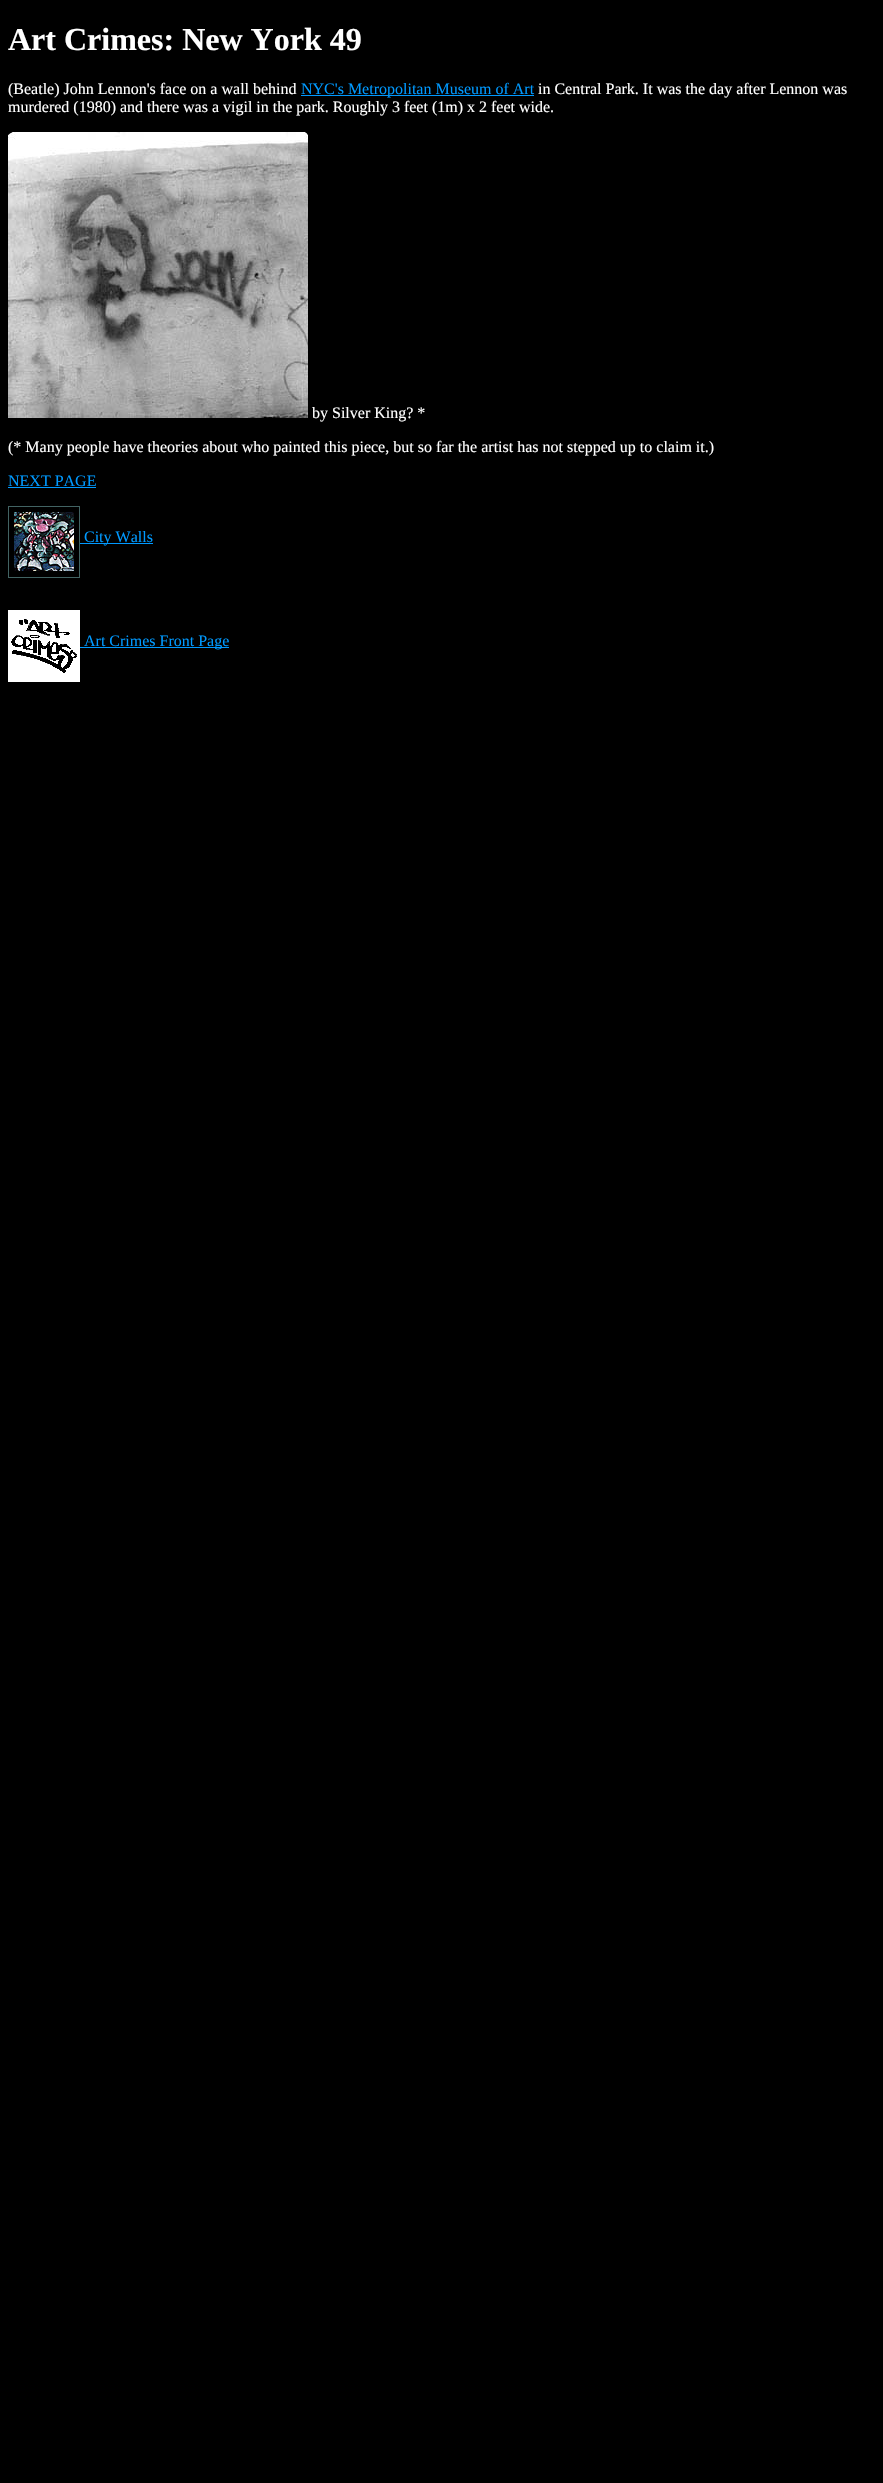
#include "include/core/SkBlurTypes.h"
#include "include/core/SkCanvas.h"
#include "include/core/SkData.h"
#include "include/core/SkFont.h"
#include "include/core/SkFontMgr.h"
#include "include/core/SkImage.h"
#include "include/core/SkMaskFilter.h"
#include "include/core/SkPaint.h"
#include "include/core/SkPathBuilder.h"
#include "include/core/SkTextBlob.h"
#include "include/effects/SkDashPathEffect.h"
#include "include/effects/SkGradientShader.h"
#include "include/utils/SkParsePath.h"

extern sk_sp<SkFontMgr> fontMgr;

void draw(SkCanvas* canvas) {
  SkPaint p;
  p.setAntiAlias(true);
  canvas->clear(SK_ColorBLACK);
  p.setColor(SkColorSetRGB(0, 153, 255));
  canvas->drawRect(SkRect::MakeLTRB(301, 95, 534, 96), p);
  canvas->drawImageRect(SkImages::DeferredFromEncodedData(SkData::MakeFromFileName("images/1.png")), SkRect::MakeLTRB(8, 132, 308, 418), SkSamplingOptions());
  canvas->drawRect(SkRect::MakeLTRB(8, 487, 96, 488), p);
  canvas->drawImageRect(SkImages::DeferredFromEncodedData(SkData::MakeFromFileName("images/2.png")), SkRect::MakeLTRB(8, 506, 80, 578), SkSamplingOptions());
  canvas->drawRect(SkRect::MakeLTRB(80, 543, 153, 544), p);
  canvas->drawImageRect(SkImages::DeferredFromEncodedData(SkData::MakeFromFileName("images/3.png")), SkRect::MakeLTRB(8, 610, 80, 682), SkSamplingOptions());
  canvas->drawRect(SkRect::MakeLTRB(80, 647, 229, 648), p);
  SkFont font1(fontMgr->matchFamilyStyle("Liberation Serif", SkFontStyle::Bold()), 32);
  font1.setSubpixel(true);
  p.setColor(SK_ColorWHITE);
  canvas->drawString("Art Crimes: New York 49", 8, 50, font1, p);
  SkFont font2(fontMgr->matchFamilyStyle("Liberation Serif", SkFontStyle::Normal()), 16);
  font2.setSubpixel(true);
  canvas->drawString("(Beatle) John Lennon's face on a wall behind", 8, 94, font2, p);
  p.setColor(SkColorSetRGB(0, 153, 255));
  canvas->drawString("NYC's Metropolitan Museum of Art", 301, 94, font2, p);
  p.setColor(SK_ColorWHITE);
  canvas->drawString("in Central Park. It was the day after Lennon was", 538, 94, font2, p);
  canvas->drawString("murdered (1980) and there was a vigil in the park. Roughly 3 feet (1m) x 2 feet wide.", 8, 112, font2, p);
  canvas->drawString("by Silver King? *", 312, 418, font2, p);
  canvas->drawString("(* Many people have theories about who painted this piece, but so far the artist has not stepped up to claim it.)", 8, 452, font2, p);
  p.setColor(SkColorSetRGB(0, 153, 255));
  canvas->drawString("NEXT PAGE", 8, 486, font2, p);
  canvas->drawString("City Walls", 84, 542, font2, p);
  canvas->drawString("Art Crimes Front Page", 84, 646, font2, p);
}
